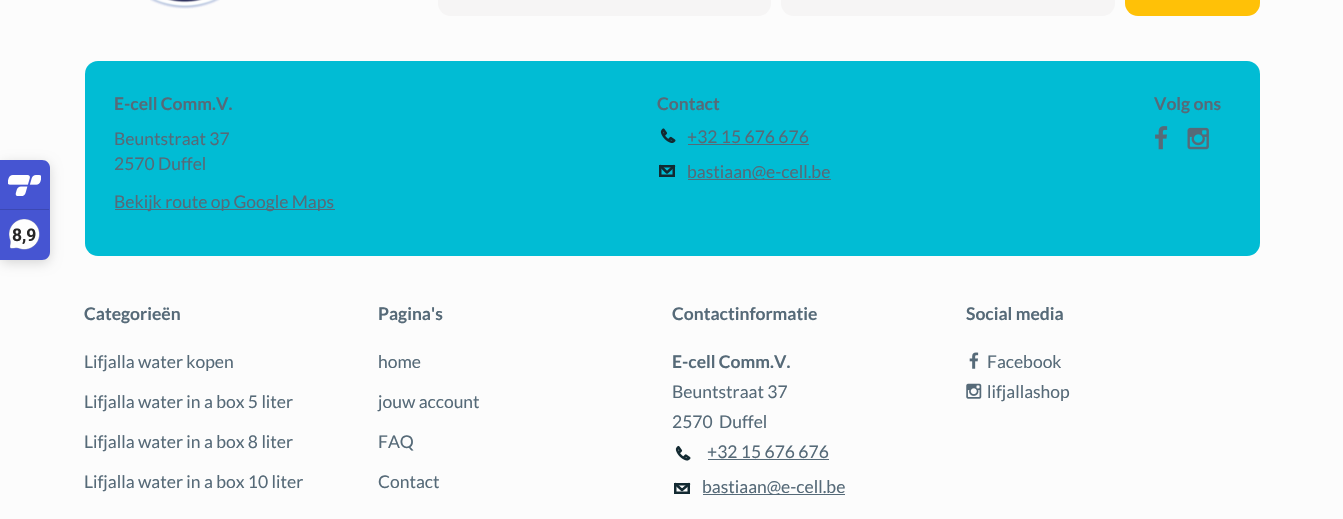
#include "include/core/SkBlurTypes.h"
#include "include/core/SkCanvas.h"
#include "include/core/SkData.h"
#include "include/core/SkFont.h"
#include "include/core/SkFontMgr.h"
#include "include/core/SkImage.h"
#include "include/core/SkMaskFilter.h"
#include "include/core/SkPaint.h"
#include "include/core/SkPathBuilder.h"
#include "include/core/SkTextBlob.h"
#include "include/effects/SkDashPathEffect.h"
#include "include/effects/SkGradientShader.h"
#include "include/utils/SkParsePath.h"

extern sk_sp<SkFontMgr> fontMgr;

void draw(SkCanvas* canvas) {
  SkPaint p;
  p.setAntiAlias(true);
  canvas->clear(SkColorSetRGB(252, 252, 252));
  p.setColor(SkColorSetARGB(38, 0, 0, 0));
  p.setMaskFilter(SkMaskFilter::MakeBlur(kNormal_SkBlurStyle, 6));
  canvas->drawRoundRect(SkRect::MakeLTRB(0, 163, 50, 263), 8, 8, p);
  p.setMaskFilter(nullptr);
  p.setColor(SkColorSetRGB(70, 85, 210));
  canvas->drawPath(SkPathBuilder().moveTo(0, 160).lineTo(42, 160).cubicTo(46.5f, 160, 50, 163.5f, 50, 168).lineTo(50, 252).cubicTo(50, 256.5f, 46.5f, 260, 42, 260).lineTo(0, 260).close().detach(), p);
  canvas->drawImageRect(SkImages::DeferredFromEncodedData(SkData::MakeFromFileName("images/1.png")), SkRect::MakeLTRB(8, 175, 41, 196), SkSamplingOptions());
  p.setColor(SkColorSetRGB(60, 72, 179));
  canvas->drawRect(SkRect::MakeLTRB(0, 209, 49, 210), p);
  canvas->drawImageRect(SkImages::DeferredFromEncodedData(SkData::MakeFromFileName("images/2.png")), SkRect::MakeLTRB(9, 219, 40, 250), SkSamplingOptions());
  canvas->drawImageRect(SkImages::DeferredFromEncodedData(SkData::MakeFromFileName("images/3.png")), SkRect::MakeLTRB(150, 0, 220, 9), SkSamplingOptions());
  p.setColor(SkColorSetRGB(246, 245, 245));
  canvas->drawRoundRect(SkRect::MakeLTRB(438, -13, 771, 16), 13, 13, p);
  canvas->drawRoundRect(SkRect::MakeLTRB(781, -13, 1115, 16), 13, 13, p);
  p.setColor(SkColorSetRGB(255, 193, 7));
  canvas->drawRoundRect(SkRect::MakeLTRB(1125, -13, 1260, 16), 13, 13, p);
  p.setColor(SkColorSetRGB(1, 188, 212));
  canvas->drawRoundRect(SkRect::MakeLTRB(85, 61, 1260, 256), 13, 13, p);
  p.setColor(SkColorSetRGB(86, 106, 120));
  canvas->drawRect(SkRect::MakeLTRB(115, 209, 335, 210), p);
  canvas->drawImageRect(SkImages::DeferredFromEncodedData(SkData::MakeFromFileName("images/4.png")), SkRect::MakeLTRB(660, 128, 676, 143), SkSamplingOptions());
  canvas->drawRect(SkRect::MakeLTRB(688, 144, 809, 145), p);
  p.setStyle(SkPaint::kStroke_Style);
  p.setStrokeWidth(2.5f);
  p.setColor(SkColorSetRGB(19, 42, 50));
  canvas->drawRect(SkRect::MakeLTRB(660.25f, 166.25f, 673.75f, 175.75f), p);
  p.setStrokeCap(SkPaint::kRound_Cap);
  p.setStrokeJoin(SkPaint::kRound_Join);
  canvas->drawPath(SkPathBuilder().moveTo(660.5f, 166).lineTo(667, 172.5f).lineTo(674, 166).detach(), p);
  p.setStyle(SkPaint::kFill_Style);
  p.setColor(SkColorSetRGB(86, 106, 120));
  canvas->drawRect(SkRect::MakeLTRB(688, 179, 831, 180), p);
  canvas->drawImageRect(SkImages::DeferredFromEncodedData(SkData::MakeFromFileName("images/5.png")), SkRect::MakeLTRB(1155, 126, 1168, 150), SkSamplingOptions());
  canvas->drawImageRect(SkImages::DeferredFromEncodedData(SkData::MakeFromFileName("images/6.png")), SkRect::MakeLTRB(1187, 127, 1209, 150), SkSamplingOptions());
  canvas->drawImageRect(SkImages::DeferredFromEncodedData(SkData::MakeFromFileName("images/7.png")), SkRect::MakeLTRB(675, 445, 691, 461), SkSamplingOptions());
  canvas->drawRect(SkRect::MakeLTRB(708, 459, 829, 460), p);
  p.setStyle(SkPaint::kStroke_Style);
  p.setStrokeCap(SkPaint::kButt_Cap);
  p.setStrokeJoin(SkPaint::kMiter_Join);
  p.setColor(SkColorSetRGB(19, 42, 50));
  canvas->drawRect(SkRect::MakeLTRB(675.25f, 484.25f, 688.75f, 492.75f), p);
  p.setStrokeCap(SkPaint::kRound_Cap);
  p.setStrokeJoin(SkPaint::kRound_Join);
  canvas->drawPath(SkPathBuilder().moveTo(675.5f, 484).lineTo(682, 490).lineTo(689, 484).detach(), p);
  p.setStyle(SkPaint::kFill_Style);
  p.setColor(SkColorSetRGB(86, 106, 120));
  canvas->drawRect(SkRect::MakeLTRB(703, 494, 845, 495), p);
  canvas->drawImageRect(SkImages::DeferredFromEncodedData(SkData::MakeFromFileName("images/8.png")), SkRect::MakeLTRB(969, 352, 979, 369), SkSamplingOptions());
  canvas->drawImageRect(SkImages::DeferredFromEncodedData(SkData::MakeFromFileName("images/9.png")), SkRect::MakeLTRB(966, 383, 982, 399), SkSamplingOptions());
  SkFont font1(fontMgr->matchFamilyStyle("Roboto", SkFontStyle::Bold()), 17.5f);
  font1.setSubpixel(true);
  p.setColor(SkColorSetRGB(39, 38, 38));
  canvas->drawString("8,9", 12, 241, font1, p);
  SkFont font2(fontMgr->matchFamilyStyle("Lato", SkFontStyle::Bold()), 17.5f);
  font2.setSubpixel(true);
  p.setColor(SkColorSetRGB(86, 106, 120));
  canvas->drawString("E-cell Comm.V.", 114, 110, font2, p);
  SkFont font3(fontMgr->matchFamilyStyle("Lato", SkFontStyle::Normal()), 17.5f);
  font3.setSubpixel(true);
  canvas->drawString("Beuntstraat 37", 114, 145, font3, p);
  canvas->drawString("2570 Duffel", 114, 170, font3, p);
  canvas->drawString("Bekijk route op Google Maps", 114, 208, font3, p);
  canvas->drawString("Contact", 657, 110, font2, p);
  canvas->drawString("+32 15 676 676", 687, 143, font3, p);
  canvas->drawString("bastiaan@e-cell.be", 687, 178, font3, p);
  canvas->drawString("Volg ons", 1154, 110, font2, p);
  canvas->drawString("Categorieën", 84, 320, font2, p);
  canvas->drawString("Lifjalla water kopen", 84, 368, font3, p);
  canvas->drawString("Lifjalla water in a box 5 liter", 84, 408, font3, p);
  canvas->drawString("Lifjalla water in a box 8 liter", 84, 448, font3, p);
  canvas->drawString("Lifjalla water in a box 10 liter", 84, 488, font3, p);
  canvas->drawString("Pagina's", 378, 320, font2, p);
  canvas->drawString("home", 378, 368, font3, p);
  canvas->drawString("jouw account", 378, 408, font3, p);
  canvas->drawString("FAQ", 378, 448, font3, p);
  canvas->drawString("Contact", 378, 488, font3, p);
  canvas->drawString("Contactinformatie", 672, 320, font2, p);
  canvas->drawString("E-cell Comm.V.", 672, 368, font2, p);
  canvas->drawString("Beuntstraat 37", 672, 398, font3, p);
  canvas->drawString("2570", 672, 428, font3, p);
  canvas->drawString("Duffel", 719, 428, font3, p);
  canvas->drawString("+32 15 676 676", 707, 458, font3, p);
  canvas->drawString("bastiaan@e-cell.be", 702, 493, font3, p);
  canvas->drawString("Social media", 966, 320, font2, p);
  canvas->drawString("Facebook", 987, 368, font3, p);
  canvas->drawString("lifjallashop", 987, 398, font3, p);
}
